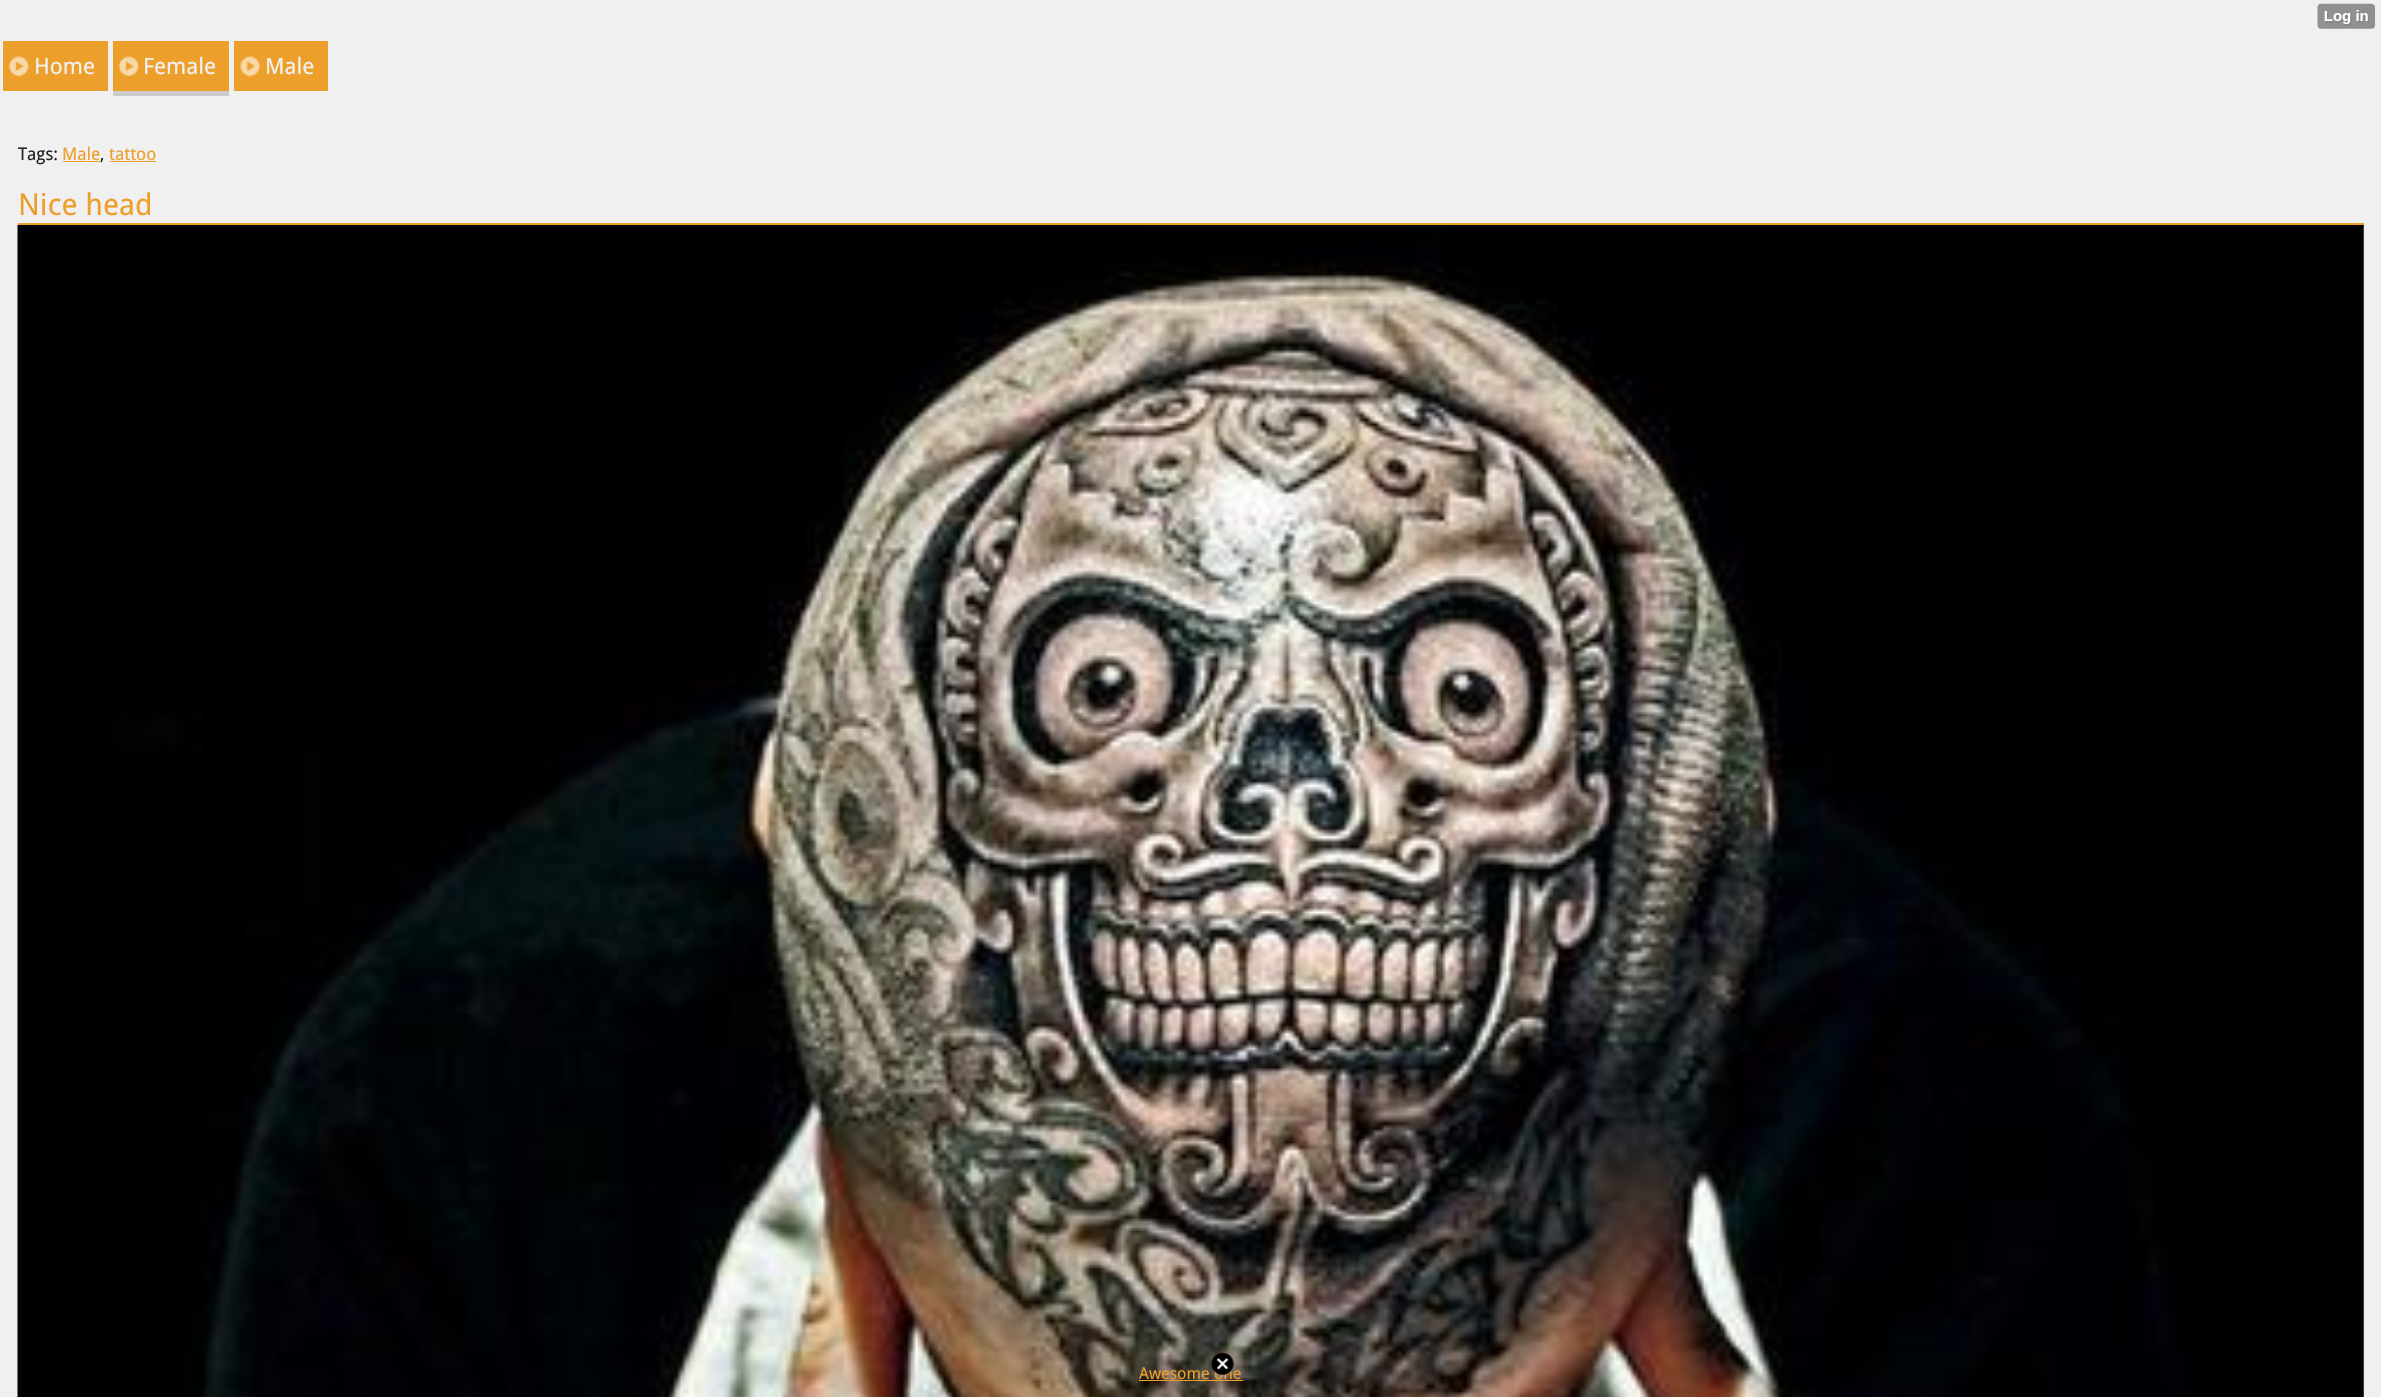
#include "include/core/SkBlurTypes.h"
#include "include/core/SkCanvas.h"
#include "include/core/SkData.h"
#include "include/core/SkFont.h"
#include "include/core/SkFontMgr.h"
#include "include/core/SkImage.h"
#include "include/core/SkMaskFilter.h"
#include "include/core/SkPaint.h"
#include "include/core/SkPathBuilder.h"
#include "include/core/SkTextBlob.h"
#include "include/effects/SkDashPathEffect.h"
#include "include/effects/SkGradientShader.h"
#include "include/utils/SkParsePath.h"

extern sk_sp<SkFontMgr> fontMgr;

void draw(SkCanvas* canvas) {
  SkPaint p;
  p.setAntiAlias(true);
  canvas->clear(SkColorSetRGB(240, 240, 240));
  canvas->drawImageRect(SkImages::DeferredFromEncodedData(SkData::MakeFromFileName("images/1.png")), SkRect::MakeLTRB(2317, 3, 2375, 29), SkSamplingOptions());
  p.setColor(SkColorSetRGB(237, 159, 43));
  canvas->drawRect(SkRect::MakeLTRB(3, 41, 108, 91), p);
  canvas->drawImageRect(SkImages::DeferredFromEncodedData(SkData::MakeFromFileName("images/2.png")), SkRect::MakeLTRB(8, 56, 29, 77), SkSamplingOptions());
  canvas->drawRect(SkRect::MakeLTRB(113, 41, 229, 91), p);
  canvas->drawImageRect(SkImages::DeferredFromEncodedData(SkData::MakeFromFileName("images/3.png")), SkRect::MakeLTRB(118, 56, 139, 77), SkSamplingOptions());
  p.setColor(SkColorSetRGB(204, 204, 204));
  canvas->drawRect(SkRect::MakeLTRB(113, 91, 229, 96), p);
  p.setColor(SkColorSetRGB(237, 159, 43));
  canvas->drawRect(SkRect::MakeLTRB(234, 41, 328, 91), p);
  canvas->drawImageRect(SkImages::DeferredFromEncodedData(SkData::MakeFromFileName("images/4.png")), SkRect::MakeLTRB(240, 56, 260, 77), SkSamplingOptions());
  canvas->drawRect(SkRect::MakeLTRB(63, 161, 100, 162), p);
  canvas->drawRect(SkRect::MakeLTRB(110, 161, 156, 162), p);
  canvas->drawRect(SkRect::MakeLTRB(18, 223, 2364, 226), p);
  canvas->drawImageRect(SkImages::DeferredFromEncodedData(SkData::MakeFromFileName("images/5.png")), SkRect::MakeLTRB(17, 225, 2364, 1397), SkSamplingOptions());
  canvas->drawRect(SkRect::MakeLTRB(1139, 1380, 1243, 1381), p);
  SkFont font1(fontMgr->matchFamilyStyle("Droid Sans", SkFontStyle::Normal()), 22.5f);
  font1.setSubpixel(true);
  p.setColor(SkColorSetRGB(240, 240, 240));
  canvas->drawString("Home", 34, 74, font1, p);
  canvas->drawString("Female", 143, 74, font1, p);
  canvas->drawString("Male", 265, 74, font1, p);
  SkFont font2(fontMgr->matchFamilyStyle("Droid Sans", SkFontStyle::Normal()), 17.5f);
  font2.setSubpixel(true);
  p.setColor(SkColorSetRGB(33, 33, 33));
  canvas->drawString("Tags:", 18, 160, font2, p);
  p.setColor(SkColorSetRGB(237, 159, 43));
  canvas->drawString("Male", 62, 160, font2, p);
  p.setColor(SkColorSetRGB(33, 33, 33));
  canvas->drawString(",", 100, 160, font2, p);
  p.setColor(SkColorSetRGB(237, 159, 43));
  canvas->drawString("tattoo", 109, 160, font2, p);
  SkFont font3(fontMgr->matchFamilyStyle("Droid Sans", SkFontStyle::Normal()), 30);
  font3.setSubpixel(true);
  canvas->drawString("Nice head", 18, 215, font3, p);
  SkFont font4(fontMgr->matchFamilyStyle("Droid Sans", SkFontStyle::Normal()), 16.25f);
  font4.setSubpixel(true);
  canvas->drawString("Awesome one", 1139, 1379, font4, p);
  canvas->drawImageRect(SkImages::DeferredFromEncodedData(SkData::MakeFromFileName("images/6.png")), SkRect::MakeLTRB(1211, 1352, 1234, 1375), SkSamplingOptions());
}
